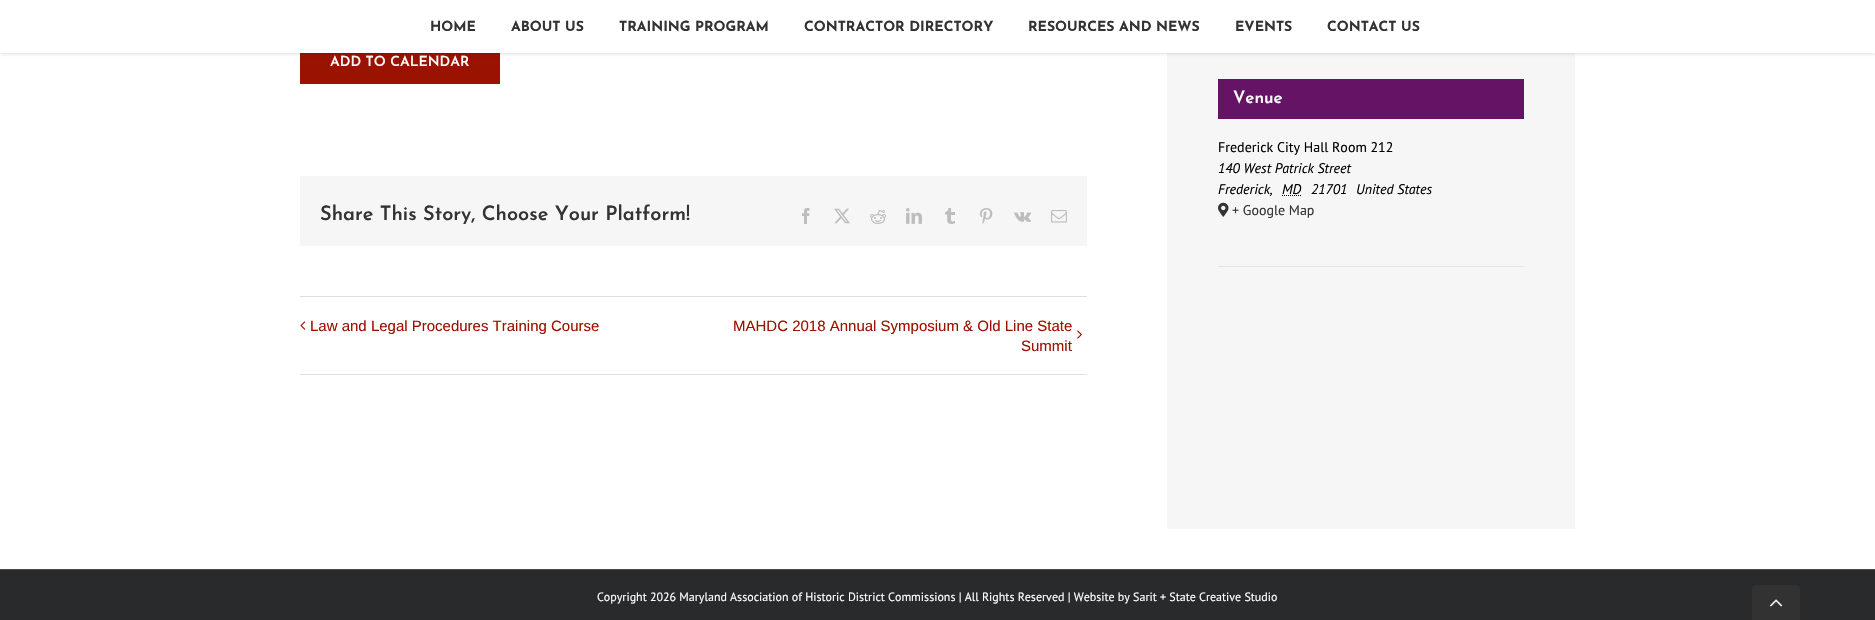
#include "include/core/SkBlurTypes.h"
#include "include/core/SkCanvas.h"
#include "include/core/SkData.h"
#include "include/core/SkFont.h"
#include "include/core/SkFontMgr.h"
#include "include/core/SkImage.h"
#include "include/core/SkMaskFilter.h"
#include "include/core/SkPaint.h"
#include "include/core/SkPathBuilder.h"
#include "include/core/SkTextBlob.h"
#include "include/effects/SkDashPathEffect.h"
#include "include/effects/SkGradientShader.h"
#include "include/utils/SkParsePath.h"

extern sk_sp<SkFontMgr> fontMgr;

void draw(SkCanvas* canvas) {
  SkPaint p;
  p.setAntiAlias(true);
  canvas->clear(SK_ColorWHITE);
  p.setColor(SkColorSetRGB(154, 18, 0));
  canvas->drawRect(SkRect::MakeLTRB(300, 53, 500, 84), p);
  p.setColor(SkColorSetRGB(246, 246, 246));
  canvas->drawRect(SkRect::MakeLTRB(1167, 53, 1575, 529), p);
  p.setColor(SkColorSetARGB(31, 0, 0, 0));
  p.setMaskFilter(SkMaskFilter::MakeBlur(kNormal_SkBlurStyle, 1.5f));
  canvas->drawRect(SkRect::MakeLTRB(0, 1, 1875, 54), p);
  p.setMaskFilter(nullptr);
  p.setColor(SK_ColorWHITE);
  canvas->drawRect(SkRect::MakeLTRB(0, 0, 1875, 53), p);
  p.setColor(SkColorSetRGB(246, 246, 246));
  canvas->drawRect(SkRect::MakeLTRB(300, 176, 1087, 246), p);
  canvas->drawImageRect(SkImages::DeferredFromEncodedData(SkData::MakeFromFileName("images/1.png")), SkRect::MakeLTRB(802, 208, 810, 224), SkSamplingOptions());
  canvas->drawImageRect(SkImages::DeferredFromEncodedData(SkData::MakeFromFileName("images/2.png")), SkRect::MakeLTRB(834, 208, 850, 224), SkSamplingOptions());
  canvas->drawImageRect(SkImages::DeferredFromEncodedData(SkData::MakeFromFileName("images/3.png")), SkRect::MakeLTRB(870, 210, 886, 224), SkSamplingOptions());
  canvas->drawImageRect(SkImages::DeferredFromEncodedData(SkData::MakeFromFileName("images/4.png")), SkRect::MakeLTRB(906, 208, 922, 224), SkSamplingOptions());
  canvas->drawImageRect(SkImages::DeferredFromEncodedData(SkData::MakeFromFileName("images/5.png")), SkRect::MakeLTRB(945, 208, 955, 224), SkSamplingOptions());
  canvas->drawImageRect(SkImages::DeferredFromEncodedData(SkData::MakeFromFileName("images/6.png")), SkRect::MakeLTRB(979, 208, 993, 224), SkSamplingOptions());
  canvas->drawImageRect(SkImages::DeferredFromEncodedData(SkData::MakeFromFileName("images/7.png")), SkRect::MakeLTRB(1014, 212, 1031, 222), SkSamplingOptions());
  canvas->drawImageRect(SkImages::DeferredFromEncodedData(SkData::MakeFromFileName("images/8.png")), SkRect::MakeLTRB(1051, 210, 1067, 223), SkSamplingOptions());
  p.setColor(SkColorSetRGB(224, 222, 222));
  canvas->drawRect(SkRect::MakeLTRB(300, 296, 1087, 297), p);
  canvas->drawRect(SkRect::MakeLTRB(300, 374, 1087, 375), p);
  canvas->drawImageRect(SkImages::DeferredFromEncodedData(SkData::MakeFromFileName("images/9.png")), SkRect::MakeLTRB(300, 321, 306, 330), SkSamplingOptions());
  canvas->drawImageRect(SkImages::DeferredFromEncodedData(SkData::MakeFromFileName("images/10.png")), SkRect::MakeLTRB(1077, 330, 1082, 339), SkSamplingOptions());
  p.setColor(SkColorSetRGB(100, 19, 101));
  canvas->drawRect(SkRect::MakeLTRB(1218, 79, 1524, 119), p);
  p.setStyle(SkPaint::kStroke_Style);
  p.setStrokeWidth(1);
  p.setColor(SK_ColorBLACK);
  p.setPathEffect(SkDashPathEffect::Make({{1, 1}}, 0));
  canvas->drawPath(SkPathBuilder().moveTo(1282, 195.5f).lineTo(1301.5f, 195.5f).detach(), p);
  p.setPathEffect(nullptr);
  canvas->drawImageRect(SkImages::DeferredFromEncodedData(SkData::MakeFromFileName("images/11.png")), SkRect::MakeLTRB(1218, 202, 1229, 217), SkSamplingOptions());
  p.setStyle(SkPaint::kFill_Style);
  p.setColor(SkColorSetRGB(228, 228, 228));
  canvas->drawRect(SkRect::MakeLTRB(1218, 266, 1524, 267), p);
  p.setColor(SkColorSetRGB(40, 42, 43));
  canvas->drawRect(SkRect::MakeLTRB(0, 570, 1875, 620), p);
  p.setColor(SkColorSetRGB(75, 76, 77));
  canvas->drawRect(SkRect::MakeLTRB(0, 569, 1875, 570), p);
  p.setColor(SkColorSetRGB(50, 50, 50));
  canvas->drawPath(SkPathBuilder().moveTo(1756, 585).lineTo(1796, 585).cubicTo(1798, 585, 1800, 587, 1800, 589).lineTo(1800, 620).lineTo(1752, 620).lineTo(1752, 589).cubicTo(1752, 587, 1754, 585, 1756, 585).close().detach(), p);
  canvas->drawImageRect(SkImages::DeferredFromEncodedData(SkData::MakeFromFileName("images/12.png")), SkRect::MakeLTRB(1770, 599, 1783, 607), SkSamplingOptions());
  SkFont font1(fontMgr->matchFamilyStyle("Josefin Sans", SkFontStyle::Bold()), 14);
  font1.setSubpixel(true);
  p.setColor(SkColorSetRGB(51, 51, 51));
  canvas->drawString("HOME", 430, 31, font1, p);
  canvas->drawString("ABOUT US", 511, 31, font1, p);
  canvas->drawString("TRAINING PROGRAM", 619, 31, font1, p);
  canvas->drawString("CONTRACTOR DIRECTORY", 804, 31, font1, p);
  canvas->drawString("RESOURCES AND NEWS", 1028, 31, font1, p);
  canvas->drawString("EVENTS", 1235, 31, font1, p);
  canvas->drawString("CONTACT US", 1327, 31, font1, p);
  SkFont font2(fontMgr->matchFamilyStyle("Josefin Sans", SkFontStyle(600, SkFontStyle::kNormal_Width, SkFontStyle::kUpright_Slant)), 14);
  font2.setSubpixel(true);
  p.setColor(SK_ColorWHITE);
  canvas->drawString("ADD TO CALENDAR", 330, 66, font2, p);
  SkFont font3(fontMgr->matchFamilyStyle("Josefin Sans", SkFontStyle(600, SkFontStyle::kNormal_Width, SkFontStyle::kUpright_Slant)), 20);
  font3.setSubpixel(true);
  p.setColor(SkColorSetRGB(51, 51, 51));
  canvas->drawString("Share This Story, Choose Your Platform!", 320, 220, font3, p);
  SkFont font4(fontMgr->matchFamilyStyle("Liberation Sans", SkFontStyle::Normal()), 15);
  font4.setSubpixel(true);
  p.setColor(SkColorSetRGB(154, 18, 0));
  canvas->drawString("Law and Legal Procedures Training Course", 310, 331, font4, p);
  canvas->drawString("MAHDC 2018 Annual Symposium & Old Line State", 733, 331, font4, p);
  canvas->drawString("Summit", 1021, 351, font4, p);
  SkFont font5(fontMgr->matchFamilyStyle("Josefin Sans", SkFontStyle(600, SkFontStyle::kNormal_Width, SkFontStyle::kUpright_Slant)), 17);
  font5.setSubpixel(true);
  p.setColor(SK_ColorWHITE);
  canvas->drawString("Venue", 1233, 103, font5, p);
  SkFont font6(fontMgr->matchFamilyStyle("PT Sans", SkFontStyle::Normal()), 14);
  font6.setSubpixel(true);
  p.setColor(SK_ColorBLACK);
  canvas->drawString("Frederick City Hall Room 212", 1218, 152, font6, p);
  SkFont font7(fontMgr->matchFamilyStyle("PT Sans", SkFontStyle::Italic()), 14);
  font7.setSubpixel(true);
  canvas->drawString("140 West Patrick Street", 1218, 173, font7, p);
  canvas->drawString("Frederick,", 1218, 194, font7, p);
  canvas->drawString("MD", 1282, 194, font7, p);
  canvas->drawString("21701", 1311, 194, font7, p);
  canvas->drawString("United States", 1356, 194, font7, p);
  p.setColor(SkColorSetRGB(51, 51, 51));
  canvas->drawString("+ Google Map", 1232, 215, font6, p);
  SkFont font8(fontMgr->matchFamilyStyle("PT Sans", SkFontStyle::Normal()), 12);
  font8.setSubpixel(true);
  p.setColor(SK_ColorWHITE);
  canvas->drawString("Copyright 2026 Maryland Association of Historic District Commissions | All Rights Reserved | Website by Sarit + State Creative Studio", 597, 601, font8, p);
}
